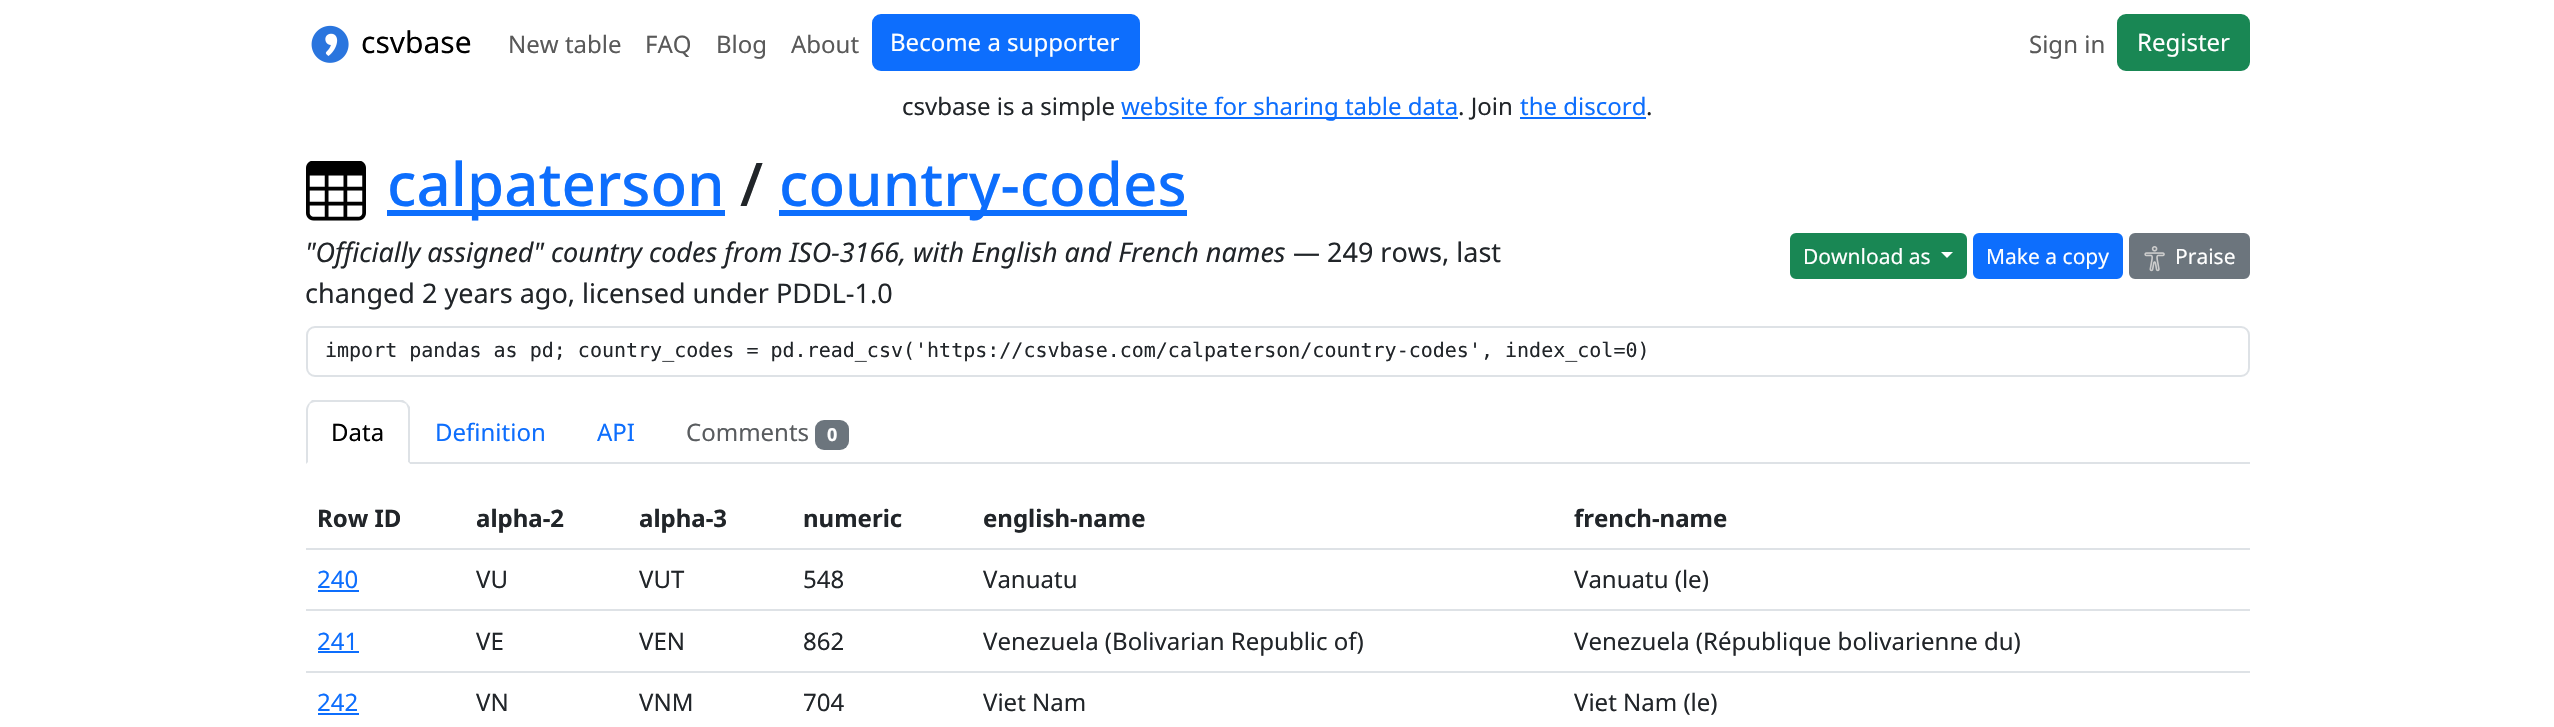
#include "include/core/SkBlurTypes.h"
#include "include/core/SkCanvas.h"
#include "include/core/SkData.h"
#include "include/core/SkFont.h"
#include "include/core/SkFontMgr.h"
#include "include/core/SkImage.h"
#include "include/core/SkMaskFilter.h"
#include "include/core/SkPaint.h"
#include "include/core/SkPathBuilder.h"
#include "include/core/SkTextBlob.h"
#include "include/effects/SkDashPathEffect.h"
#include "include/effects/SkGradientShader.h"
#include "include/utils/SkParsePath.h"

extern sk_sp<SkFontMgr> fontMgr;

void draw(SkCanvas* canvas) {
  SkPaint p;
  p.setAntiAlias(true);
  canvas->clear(SK_ColorWHITE);
  canvas->drawImageRect(SkImages::DeferredFromEncodedData(SkData::MakeFromFileName("images/1.png")), SkRect::MakeLTRB(311, 25, 349, 63), SkSamplingOptions());
  p.setColor(SkColorSetRGB(13, 110, 253));
  canvas->drawRoundRect(SkRect::MakeLTRB(873, 15, 1139, 70), 8, 8, p);
  p.setStyle(SkPaint::kStroke_Style);
  p.setStrokeWidth(2);
  canvas->drawRoundRect(SkRect::MakeLTRB(873, 15, 1139, 70), 8, 8, p);
  p.setStyle(SkPaint::kFill_Style);
  p.setColor(SkColorSetRGB(25, 135, 84));
  canvas->drawRoundRect(SkRect::MakeLTRB(2118, 15, 2249, 70), 8, 8, p);
  p.setStyle(SkPaint::kStroke_Style);
  canvas->drawRoundRect(SkRect::MakeLTRB(2118, 15, 2249, 70), 8, 8, p);
  p.setStyle(SkPaint::kFill_Style);
  p.setColor(SkColorSetRGB(13, 110, 253));
  canvas->drawRect(SkRect::MakeLTRB(1122, 117, 1458, 119), p);
  canvas->drawRect(SkRect::MakeLTRB(1520, 117, 1646, 119), p);
  canvas->drawImageRect(SkImages::DeferredFromEncodedData(SkData::MakeFromFileName("images/2.png")), SkRect::MakeLTRB(306, 161, 366, 221), SkSamplingOptions());
  canvas->drawRect(SkRect::MakeLTRB(387, 210, 725, 216), p);
  canvas->drawRect(SkRect::MakeLTRB(779, 210, 1187, 216), p);
  p.setColor(SkColorSetRGB(25, 135, 84));
  canvas->drawRoundRect(SkRect::MakeLTRB(1791, 234, 1966, 278), 5, 5, p);
  p.setStyle(SkPaint::kStroke_Style);
  canvas->drawRoundRect(SkRect::MakeLTRB(1791, 234, 1966, 278), 5, 5, p);
  p.setStyle(SkPaint::kFill_Style);
  p.setColor(SK_ColorWHITE);
  canvas->drawPath(SkPathBuilder().moveTo(1941, 252).lineTo(1953, 252).lineTo(1947, 258).close().detach(), p);
  p.setColor(SkColorSetRGB(13, 110, 253));
  canvas->drawRoundRect(SkRect::MakeLTRB(1974, 234, 2122, 278), 5, 5, p);
  p.setStyle(SkPaint::kStroke_Style);
  canvas->drawRoundRect(SkRect::MakeLTRB(1974, 234, 2122, 278), 5, 5, p);
  p.setStyle(SkPaint::kFill_Style);
  p.setColor(SkColorSetRGB(108, 117, 125));
  canvas->drawRoundRect(SkRect::MakeLTRB(2130, 234, 2249, 278), 5, 5, p);
  p.setStyle(SkPaint::kStroke_Style);
  canvas->drawRoundRect(SkRect::MakeLTRB(2130, 234, 2249, 278), 5, 5, p);
  canvas->drawImageRect(SkImages::DeferredFromEncodedData(SkData::MakeFromFileName("images/3.png")), SkRect::MakeLTRB(2144, 246, 2165, 272), SkSamplingOptions());
  p.setColor(SkColorSetRGB(222, 226, 230));
  canvas->drawRoundRect(SkRect::MakeLTRB(307, 327, 2249, 376), 8, 8, p);
  p.setStyle(SkPaint::kFill_Style);
  canvas->drawRect(SkRect::MakeLTRB(410, 462, 2250, 464), p);
  canvas->drawPath(SkPathBuilder().moveTo(315, 402).cubicTo(313, 402, 311, 403, 310, 404).lineTo(309, 403).lineTo(312, 400).lineTo(403, 400).lineTo(407, 403).lineTo(406, 404).cubicTo(404, 403, 402, 402, 400, 402).close().detach(), p);
  canvas->drawPath(SkPathBuilder().moveTo(407, 403).lineTo(410, 407).lineTo(410, 464).lineTo(408, 462).lineTo(408, 410).cubicTo(408, 408, 407, 406, 406, 404).close().detach(), p);
  p.setColor(SK_ColorWHITE);
  canvas->drawPath(SkPathBuilder().moveTo(410, 464).lineTo(408, 462).lineTo(308, 462).lineTo(306, 464).close().detach(), p);
  p.setColor(SkColorSetRGB(222, 226, 230));
  canvas->drawPath(SkPathBuilder().moveTo(306, 464).lineTo(308, 462).lineTo(308, 410).cubicTo(308, 408, 309, 406, 310, 404).lineTo(309, 403).cubicTo(307, 405, 306, 408, 306, 410).close().detach(), p);
  p.setColor(SkColorSetRGB(108, 117, 125));
  canvas->drawRoundRect(SkRect::MakeLTRB(815, 420, 849, 450), 9, 9, p);
  p.setColor(SkColorSetRGB(222, 226, 230));
  canvas->drawRect(SkRect::MakeLTRB(306, 548, 2250, 550), p);
  p.setColor(SkColorSetRGB(13, 110, 253));
  canvas->drawRect(SkRect::MakeLTRB(318, 590, 359, 592), p);
  p.setColor(SkColorSetRGB(222, 226, 230));
  canvas->drawRect(SkRect::MakeLTRB(306, 609, 2250, 611), p);
  p.setColor(SkColorSetRGB(13, 110, 253));
  canvas->drawRect(SkRect::MakeLTRB(318, 651, 359, 653), p);
  p.setColor(SkColorSetRGB(222, 226, 230));
  canvas->drawRect(SkRect::MakeLTRB(306, 671, 2250, 673), p);
  p.setColor(SkColorSetRGB(13, 110, 253));
  canvas->drawRect(SkRect::MakeLTRB(318, 713, 359, 715), p);
  SkFont font1(fontMgr->matchFamilyStyle("Noto Sans", SkFontStyle::Normal()), 30);
  font1.setSubpixel(true);
  p.setColor(SK_ColorBLACK);
  canvas->drawString("csvbase", 361, 53, font1, p);
  SkFont font2(fontMgr->matchFamilyStyle("Noto Sans", SkFontStyle::Normal()), 24);
  font2.setSubpixel(true);
  p.setColor(SkColorSetRGB(89, 89, 89));
  canvas->drawString("New table", 508, 53, font2, p);
  canvas->drawString("FAQ", 645, 53, font2, p);
  canvas->drawString("Blog", 716, 53, font2, p);
  canvas->drawString("About", 791, 53, font2, p);
  p.setColor(SK_ColorWHITE);
  canvas->drawString("Become a supporter", 890, 51, font2, p);
  p.setColor(SkColorSetRGB(89, 89, 89));
  canvas->drawString("Sign in", 2029, 53, font2, p);
  p.setColor(SK_ColorWHITE);
  canvas->drawString("Register", 2137, 51, font2, p);
  p.setColor(SkColorSetRGB(33, 37, 41));
  canvas->drawString("csvbase is a simple", 902, 115, font2, p);
  p.setColor(SkColorSetRGB(13, 110, 253));
  canvas->drawString("website for sharing table data", 1121, 115, font2, p);
  p.setColor(SkColorSetRGB(33, 37, 41));
  canvas->drawString(". Join", 1458, 115, font2, p);
  p.setColor(SkColorSetRGB(13, 110, 253));
  canvas->drawString("the discord", 1520, 115, font2, p);
  p.setColor(SkColorSetRGB(33, 37, 41));
  canvas->drawString(".", 1646, 115, font2, p);
  SkFont font3(fontMgr->matchFamilyStyle("Noto Sans", SkFontStyle(500, SkFontStyle::kNormal_Width, SkFontStyle::kUpright_Slant)), 60);
  font3.setSubpixel(true);
  p.setColor(SkColorSetRGB(13, 110, 253));
  canvas->drawString("calpaterson", 387, 206, font3, p);
  p.setColor(SkColorSetRGB(33, 37, 41));
  canvas->drawString("/", 740, 206, font3, p);
  p.setColor(SkColorSetRGB(13, 110, 253));
  canvas->drawString("country-codes", 779, 206, font3, p);
  SkFont font4(fontMgr->matchFamilyStyle("Noto Sans", SkFontStyle::Italic()), 27);
  font4.setSubpixel(true);
  p.setColor(SkColorSetRGB(33, 37, 41));
  canvas->drawString("\"Officially assigned\" country codes from ISO-3166, with English and French names", 305, 262, font4, p);
  SkFont font5(fontMgr->matchFamilyStyle("Noto Sans", SkFontStyle::Normal()), 27);
  font5.setSubpixel(true);
  canvas->drawString("— 249 rows, last", 1293, 262, font5, p);
  canvas->drawString("changed 2 years ago, licensed under PDDL-1.0", 305, 303, font5, p);
  SkFont font6(fontMgr->matchFamilyStyle("Noto Sans", SkFontStyle::Normal()), 21);
  font6.setSubpixel(true);
  p.setColor(SK_ColorWHITE);
  canvas->drawString("Download as", 1803, 264, font6, p);
  canvas->drawString("Make a copy", 1986, 264, font6, p);
  canvas->drawString("Praise", 2175, 264, font6, p);
  SkFont font7(fontMgr->matchFamilyStyle("DejaVu Sans Mono", SkFontStyle::Normal()), 20);
  font7.setSubpixel(true);
  p.setColor(SkColorSetRGB(33, 37, 41));
  canvas->drawString("import pandas as pd; country_codes = pd.read_csv('https://csvbase.com/calpaterson/country-codes', index_col=0)", 325, 357, font7, p);
  p.setColor(SK_ColorBLACK);
  canvas->drawString("Data", 331, 441, font2, p);
  p.setColor(SkColorSetRGB(13, 110, 253));
  canvas->drawString("Definition", 435, 441, font2, p);
  canvas->drawString("API", 597, 441, font2, p);
  p.setColor(SkColorSetRGB(89, 92, 95));
  canvas->drawString("Comments", 686, 441, font2, p);
  SkFont font8(fontMgr->matchFamilyStyle("Noto Sans", SkFontStyle::Bold()), 18);
  font8.setSubpixel(true);
  p.setColor(SK_ColorWHITE);
  canvas->drawString("0", 827, 441, font8, p);
  SkFont font9(fontMgr->matchFamilyStyle("Noto Sans", SkFontStyle::Bold()), 24);
  font9.setSubpixel(true);
  p.setColor(SkColorSetRGB(33, 37, 41));
  canvas->drawString("Row ID", 317, 527, font9, p);
  canvas->drawString("alpha-2", 476, 527, font9, p);
  canvas->drawString("alpha-3", 639, 527, font9, p);
  canvas->drawString("numeric", 803, 527, font9, p);
  canvas->drawString("english-name", 983, 527, font9, p);
  canvas->drawString("french-name", 1574, 527, font9, p);
  p.setColor(SkColorSetRGB(13, 110, 253));
  canvas->drawString("240", 317, 588, font2, p);
  p.setColor(SkColorSetRGB(33, 37, 41));
  canvas->drawString("VU", 476, 588, font2, p);
  canvas->drawString("VUT", 639, 588, font2, p);
  canvas->drawString("548", 803, 588, font2, p);
  canvas->drawString("Vanuatu", 983, 588, font2, p);
  canvas->drawString("Vanuatu (le)", 1574, 588, font2, p);
  p.setColor(SkColorSetRGB(13, 110, 253));
  canvas->drawString("241", 317, 650, font2, p);
  p.setColor(SkColorSetRGB(33, 37, 41));
  canvas->drawString("VE", 476, 650, font2, p);
  canvas->drawString("VEN", 639, 650, font2, p);
  canvas->drawString("862", 803, 650, font2, p);
  canvas->drawString("Venezuela (Bolivarian Republic of)", 983, 650, font2, p);
  canvas->drawString("Venezuela (République bolivarienne du)", 1574, 650, font2, p);
  p.setColor(SkColorSetRGB(13, 110, 253));
  canvas->drawString("242", 317, 711, font2, p);
  p.setColor(SkColorSetRGB(33, 37, 41));
  canvas->drawString("VN", 476, 711, font2, p);
  canvas->drawString("VNM", 639, 711, font2, p);
  canvas->drawString("704", 803, 711, font2, p);
  canvas->drawString("Viet Nam", 983, 711, font2, p);
  canvas->drawString("Viet Nam (le)", 1574, 711, font2, p);
}
